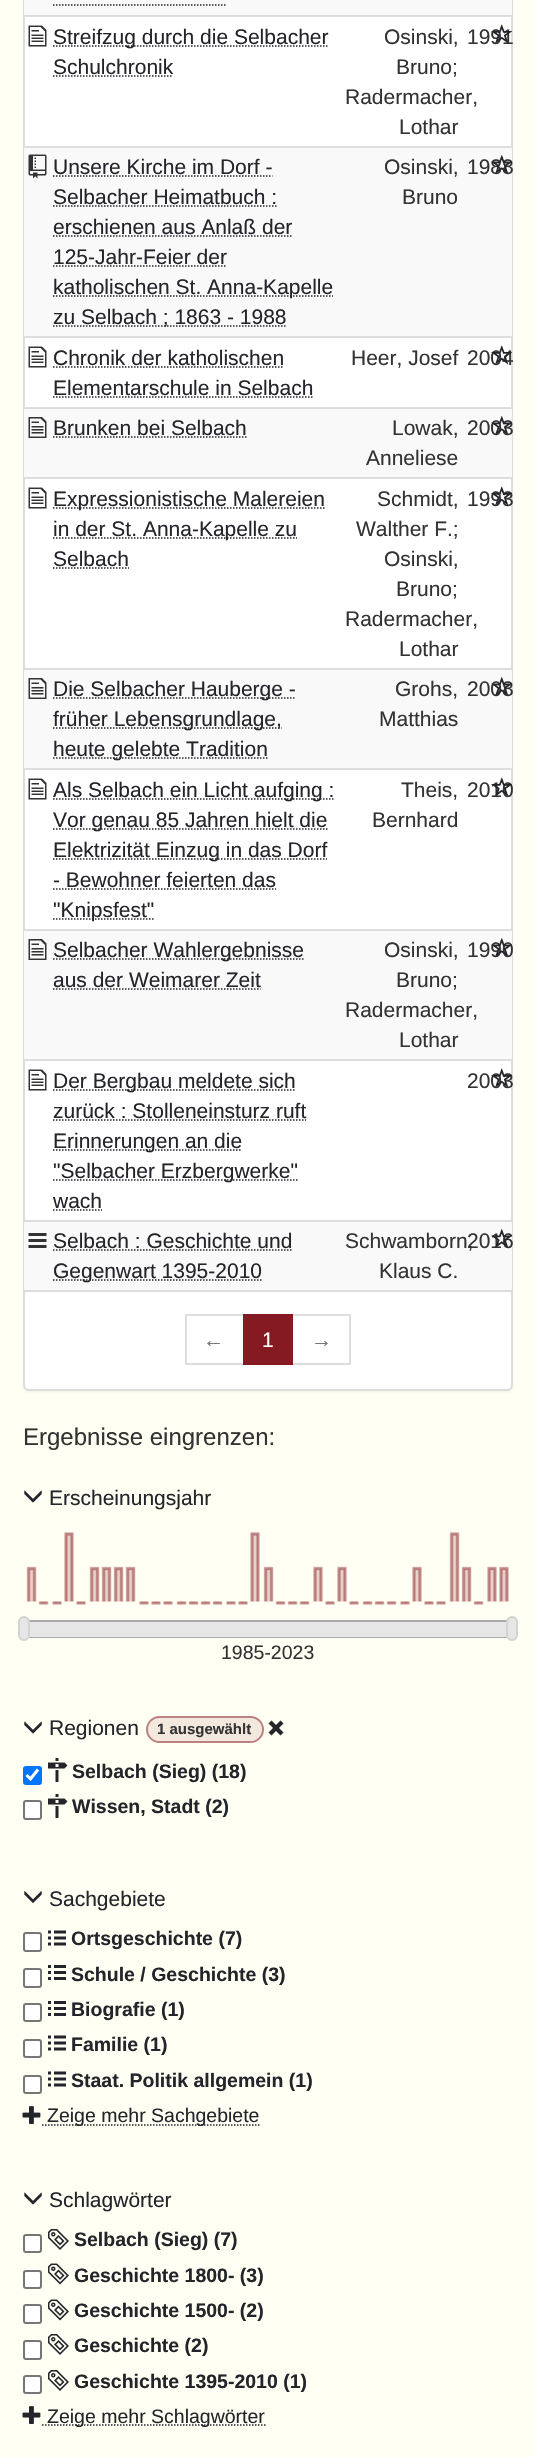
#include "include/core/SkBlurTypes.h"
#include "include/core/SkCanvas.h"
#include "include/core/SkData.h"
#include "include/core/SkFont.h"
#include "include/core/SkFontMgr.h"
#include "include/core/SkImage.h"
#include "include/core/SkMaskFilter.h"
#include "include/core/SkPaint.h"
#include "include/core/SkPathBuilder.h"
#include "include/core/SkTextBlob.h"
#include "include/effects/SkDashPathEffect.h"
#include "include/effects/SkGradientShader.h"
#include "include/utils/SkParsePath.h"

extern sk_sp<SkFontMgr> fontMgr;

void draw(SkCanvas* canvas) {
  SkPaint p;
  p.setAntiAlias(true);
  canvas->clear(SkColorSetRGB(255, 255, 243));
  p.setColor(SkColorSetARGB(13, 0, 0, 0));
  p.setMaskFilter(SkMaskFilter::MakeBlur(kNormal_SkBlurStyle, 1));
  canvas->drawRoundRect(SkRect::MakeLTRB(23, -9, 513, 1392), 6, 6, p);
  p.setMaskFilter(nullptr);
  p.setColor(SK_ColorWHITE);
  canvas->drawRoundRect(SkRect::MakeLTRB(24, -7, 512, 1390), 5, 5, p);
  p.setStyle(SkPaint::kStroke_Style);
  p.setStrokeWidth(2);
  p.setColor(SkColorSetRGB(221, 221, 221));
  canvas->drawRoundRect(SkRect::MakeLTRB(24, -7, 512, 1390), 5, 5, p);
  p.setStyle(SkPaint::kFill_Style);
  p.setColor(SkColorSetRGB(249, 249, 249));
  canvas->drawRect(SkRect::MakeLTRB(24, 0, 512, 15), p);
  p.setStyle(SkPaint::kStroke_Style);
  p.setStrokeWidth(1.5f);
  p.setColor(SkColorSetRGB(36, 37, 43));
  p.setPathEffect(SkDashPathEffect::Make({{1.5f, 1.5f}}, 0));
  canvas->drawPath(SkPathBuilder().moveTo(53, 5).lineTo(227, 5).detach(), p);
  p.setPathEffect(nullptr);
  p.setStyle(SkPaint::kFill_Style);
  p.setColor(SkColorSetRGB(221, 221, 221));
  canvas->drawRect(SkRect::MakeLTRB(24, 15, 513, 17), p);
  canvas->drawImageRect(SkImages::DeferredFromEncodedData(SkData::MakeFromFileName("images/2.png")), SkRect::MakeLTRB(28, 25, 47, 47), SkSamplingOptions());
  p.setStyle(SkPaint::kStroke_Style);
  p.setColor(SkColorSetRGB(36, 37, 43));
  p.setPathEffect(SkDashPathEffect::Make({{1.5f, 1.5f}}, 0));
  canvas->drawPath(SkPathBuilder().moveTo(53, 46).lineTo(328.5f, 46).detach(), p);
  p.setPathEffect(nullptr);
  p.setPathEffect(SkDashPathEffect::Make({{1.5f, 1.5f}}, 0));
  canvas->drawPath(SkPathBuilder().moveTo(53, 76).lineTo(173, 76).detach(), p);
  p.setPathEffect(nullptr);
  p.setStyle(SkPaint::kFill_Style);
  p.setColor(SkColorSetRGB(249, 249, 249));
  canvas->drawRect(SkRect::MakeLTRB(24, 148, 512, 336), p);
  p.setColor(SkColorSetRGB(221, 221, 221));
  canvas->drawRect(SkRect::MakeLTRB(24, 146, 513, 148), p);
  canvas->drawImageRect(SkImages::DeferredFromEncodedData(SkData::MakeFromFileName("images/4.png")), SkRect::MakeLTRB(28, 154, 47, 179), SkSamplingOptions());
  p.setStyle(SkPaint::kStroke_Style);
  p.setColor(SkColorSetRGB(36, 37, 43));
  p.setPathEffect(SkDashPathEffect::Make({{1.5f, 1.5f}}, 0));
  canvas->drawPath(SkPathBuilder().moveTo(53, 176).lineTo(272.5f, 176).detach(), p);
  p.setPathEffect(nullptr);
  p.setPathEffect(SkDashPathEffect::Make({{1.5f, 1.5f}}, 0));
  canvas->drawPath(SkPathBuilder().moveTo(53, 206).lineTo(277, 206).detach(), p);
  p.setPathEffect(nullptr);
  p.setPathEffect(SkDashPathEffect::Make({{1.5f, 1.5f}}, 0));
  canvas->drawPath(SkPathBuilder().moveTo(53, 236).lineTo(292, 236).detach(), p);
  p.setPathEffect(nullptr);
  p.setPathEffect(SkDashPathEffect::Make({{1.5f, 1.5f}}, 0));
  canvas->drawPath(SkPathBuilder().moveTo(53, 266).lineTo(227, 266).detach(), p);
  p.setPathEffect(nullptr);
  p.setPathEffect(SkDashPathEffect::Make({{1.5f, 1.5f}}, 0));
  canvas->drawPath(SkPathBuilder().moveTo(53, 296).lineTo(333, 296).detach(), p);
  p.setPathEffect(nullptr);
  p.setPathEffect(SkDashPathEffect::Make({{1.5f, 1.5f}}, 0));
  canvas->drawPath(SkPathBuilder().moveTo(53, 326).lineTo(286.5f, 326).detach(), p);
  p.setPathEffect(nullptr);
  p.setStyle(SkPaint::kFill_Style);
  p.setColor(SkColorSetRGB(221, 221, 221));
  canvas->drawRect(SkRect::MakeLTRB(24, 336, 513, 338), p);
  canvas->drawImageRect(SkImages::DeferredFromEncodedData(SkData::MakeFromFileName("images/2.png")), SkRect::MakeLTRB(28, 346, 47, 368), SkSamplingOptions());
  p.setStyle(SkPaint::kStroke_Style);
  p.setColor(SkColorSetRGB(36, 37, 43));
  p.setPathEffect(SkDashPathEffect::Make({{1.5f, 1.5f}}, 0));
  canvas->drawPath(SkPathBuilder().moveTo(53, 367).lineTo(284, 367).detach(), p);
  p.setPathEffect(nullptr);
  p.setPathEffect(SkDashPathEffect::Make({{1.5f, 1.5f}}, 0));
  canvas->drawPath(SkPathBuilder().moveTo(53, 397).lineTo(313, 397).detach(), p);
  p.setPathEffect(nullptr);
  p.setStyle(SkPaint::kFill_Style);
  p.setColor(SkColorSetRGB(249, 249, 249));
  canvas->drawRect(SkRect::MakeLTRB(24, 409, 512, 477), p);
  p.setColor(SkColorSetRGB(221, 221, 221));
  canvas->drawRect(SkRect::MakeLTRB(24, 407, 513, 409), p);
  canvas->drawImageRect(SkImages::DeferredFromEncodedData(SkData::MakeFromFileName("images/7.png")), SkRect::MakeLTRB(28, 417, 47, 438), SkSamplingOptions());
  p.setStyle(SkPaint::kStroke_Style);
  p.setColor(SkColorSetRGB(36, 37, 43));
  p.setPathEffect(SkDashPathEffect::Make({{1.5f, 1.5f}}, 0));
  canvas->drawPath(SkPathBuilder().moveTo(53, 437).lineTo(246.5f, 437).detach(), p);
  p.setPathEffect(nullptr);
  p.setStyle(SkPaint::kFill_Style);
  p.setColor(SkColorSetRGB(221, 221, 221));
  canvas->drawRect(SkRect::MakeLTRB(24, 477, 513, 479), p);
  canvas->drawImageRect(SkImages::DeferredFromEncodedData(SkData::MakeFromFileName("images/2.png")), SkRect::MakeLTRB(28, 487, 47, 509), SkSamplingOptions());
  p.setStyle(SkPaint::kStroke_Style);
  p.setColor(SkColorSetRGB(36, 37, 43));
  p.setPathEffect(SkDashPathEffect::Make({{1.5f, 1.5f}}, 0));
  canvas->drawPath(SkPathBuilder().moveTo(53, 508).lineTo(325, 508).detach(), p);
  p.setPathEffect(nullptr);
  p.setPathEffect(SkDashPathEffect::Make({{1.5f, 1.5f}}, 0));
  canvas->drawPath(SkPathBuilder().moveTo(53, 538).lineTo(297, 538).detach(), p);
  p.setPathEffect(nullptr);
  p.setPathEffect(SkDashPathEffect::Make({{1.5f, 1.5f}}, 0));
  canvas->drawPath(SkPathBuilder().moveTo(53, 568).lineTo(129, 568).detach(), p);
  p.setPathEffect(nullptr);
  p.setStyle(SkPaint::kFill_Style);
  p.setColor(SkColorSetRGB(249, 249, 249));
  canvas->drawRect(SkRect::MakeLTRB(24, 670, 512, 768), p);
  p.setColor(SkColorSetRGB(221, 221, 221));
  canvas->drawRect(SkRect::MakeLTRB(24, 668, 513, 670), p);
  canvas->drawImageRect(SkImages::DeferredFromEncodedData(SkData::MakeFromFileName("images/7.png")), SkRect::MakeLTRB(28, 678, 47, 699), SkSamplingOptions());
  p.setStyle(SkPaint::kStroke_Style);
  p.setColor(SkColorSetRGB(36, 37, 43));
  p.setPathEffect(SkDashPathEffect::Make({{1.5f, 1.5f}}, 0));
  canvas->drawPath(SkPathBuilder().moveTo(53, 698).lineTo(295.5f, 698).detach(), p);
  p.setPathEffect(nullptr);
  p.setPathEffect(SkDashPathEffect::Make({{1.5f, 1.5f}}, 0));
  canvas->drawPath(SkPathBuilder().moveTo(53, 728).lineTo(281.5f, 728).detach(), p);
  p.setPathEffect(nullptr);
  p.setPathEffect(SkDashPathEffect::Make({{1.5f, 1.5f}}, 0));
  canvas->drawPath(SkPathBuilder().moveTo(53, 758).lineTo(267.5f, 758).detach(), p);
  p.setPathEffect(nullptr);
  p.setStyle(SkPaint::kFill_Style);
  p.setColor(SkColorSetRGB(221, 221, 221));
  canvas->drawRect(SkRect::MakeLTRB(24, 768, 513, 770), p);
  canvas->drawImageRect(SkImages::DeferredFromEncodedData(SkData::MakeFromFileName("images/2.png")), SkRect::MakeLTRB(28, 778, 47, 800), SkSamplingOptions());
  p.setStyle(SkPaint::kStroke_Style);
  p.setColor(SkColorSetRGB(36, 37, 43));
  p.setPathEffect(SkDashPathEffect::Make({{1.5f, 1.5f}}, 0));
  canvas->drawPath(SkPathBuilder().moveTo(53, 799).lineTo(334, 799).detach(), p);
  p.setPathEffect(nullptr);
  p.setPathEffect(SkDashPathEffect::Make({{1.5f, 1.5f}}, 0));
  canvas->drawPath(SkPathBuilder().moveTo(53, 829).lineTo(327.5f, 829).detach(), p);
  p.setPathEffect(nullptr);
  p.setPathEffect(SkDashPathEffect::Make({{1.5f, 1.5f}}, 0));
  canvas->drawPath(SkPathBuilder().moveTo(53, 859).lineTo(327, 859).detach(), p);
  p.setPathEffect(nullptr);
  p.setPathEffect(SkDashPathEffect::Make({{1.5f, 1.5f}}, 0));
  canvas->drawPath(SkPathBuilder().moveTo(53, 889).lineTo(276, 889).detach(), p);
  p.setPathEffect(nullptr);
  p.setPathEffect(SkDashPathEffect::Make({{1.5f, 1.5f}}, 0));
  canvas->drawPath(SkPathBuilder().moveTo(53, 919).lineTo(154, 919).detach(), p);
  p.setPathEffect(nullptr);
  p.setStyle(SkPaint::kFill_Style);
  p.setColor(SkColorSetRGB(249, 249, 249));
  canvas->drawRect(SkRect::MakeLTRB(24, 931, 512, 1059), p);
  p.setColor(SkColorSetRGB(221, 221, 221));
  canvas->drawRect(SkRect::MakeLTRB(24, 929, 513, 931), p);
  canvas->drawImageRect(SkImages::DeferredFromEncodedData(SkData::MakeFromFileName("images/7.png")), SkRect::MakeLTRB(28, 939, 47, 960), SkSamplingOptions());
  p.setStyle(SkPaint::kStroke_Style);
  p.setColor(SkColorSetRGB(36, 37, 43));
  p.setPathEffect(SkDashPathEffect::Make({{1.5f, 1.5f}}, 0));
  canvas->drawPath(SkPathBuilder().moveTo(53, 959).lineTo(304, 959).detach(), p);
  p.setPathEffect(nullptr);
  p.setPathEffect(SkDashPathEffect::Make({{1.5f, 1.5f}}, 0));
  canvas->drawPath(SkPathBuilder().moveTo(53, 989).lineTo(260.5f, 989).detach(), p);
  p.setPathEffect(nullptr);
  p.setStyle(SkPaint::kFill_Style);
  p.setColor(SkColorSetRGB(221, 221, 221));
  canvas->drawRect(SkRect::MakeLTRB(24, 1059, 513, 1061), p);
  canvas->drawImageRect(SkImages::DeferredFromEncodedData(SkData::MakeFromFileName("images/2.png")), SkRect::MakeLTRB(28, 1069, 47, 1091), SkSamplingOptions());
  p.setStyle(SkPaint::kStroke_Style);
  p.setColor(SkColorSetRGB(36, 37, 43));
  p.setPathEffect(SkDashPathEffect::Make({{1.5f, 1.5f}}, 0));
  canvas->drawPath(SkPathBuilder().moveTo(53, 1090).lineTo(295.5f, 1090).detach(), p);
  p.setPathEffect(nullptr);
  p.setPathEffect(SkDashPathEffect::Make({{1.5f, 1.5f}}, 0));
  canvas->drawPath(SkPathBuilder().moveTo(53, 1120).lineTo(306, 1120).detach(), p);
  p.setPathEffect(nullptr);
  p.setPathEffect(SkDashPathEffect::Make({{1.5f, 1.5f}}, 0));
  canvas->drawPath(SkPathBuilder().moveTo(53, 1150).lineTo(242, 1150).detach(), p);
  p.setPathEffect(nullptr);
  p.setPathEffect(SkDashPathEffect::Make({{1.5f, 1.5f}}, 0));
  canvas->drawPath(SkPathBuilder().moveTo(53, 1180).lineTo(298, 1180).detach(), p);
  p.setPathEffect(nullptr);
  p.setPathEffect(SkDashPathEffect::Make({{1.5f, 1.5f}}, 0));
  canvas->drawPath(SkPathBuilder().moveTo(53, 1210).lineTo(102, 1210).detach(), p);
  p.setPathEffect(nullptr);
  p.setStyle(SkPaint::kFill_Style);
  p.setColor(SkColorSetRGB(249, 249, 249));
  canvas->drawRect(SkRect::MakeLTRB(24, 1222, 512, 1290), p);
  p.setColor(SkColorSetRGB(221, 221, 221));
  canvas->drawRect(SkRect::MakeLTRB(24, 1220, 513, 1222), p);
  canvas->drawImageRect(SkImages::DeferredFromEncodedData(SkData::MakeFromFileName("images/14.png")), SkRect::MakeLTRB(28, 1233, 47, 1248), SkSamplingOptions());
  p.setStyle(SkPaint::kStroke_Style);
  p.setColor(SkColorSetRGB(36, 37, 43));
  p.setPathEffect(SkDashPathEffect::Make({{1.5f, 1.5f}}, 0));
  canvas->drawPath(SkPathBuilder().moveTo(53, 1250).lineTo(292, 1250).detach(), p);
  p.setPathEffect(nullptr);
  p.setPathEffect(SkDashPathEffect::Make({{1.5f, 1.5f}}, 0));
  canvas->drawPath(SkPathBuilder().moveTo(53, 1280).lineTo(262, 1280).detach(), p);
  p.setPathEffect(nullptr);
  p.setStyle(SkPaint::kFill_Style);
  p.setColor(SkColorSetRGB(221, 221, 221));
  canvas->drawRect(SkRect::MakeLTRB(24, 1290, 512, 1292), p);
  p.setStyle(SkPaint::kStroke_Style);
  p.setStrokeWidth(2);
  canvas->drawRect(SkRect::MakeLTRB(186, 1315, 244, 1364), p);
  canvas->drawRect(SkRect::MakeLTRB(292, 1315, 350, 1364), p);
  p.setStyle(SkPaint::kFill_Style);
  p.setColor(SkColorSetRGB(134, 26, 34));
  canvas->drawRect(SkRect::MakeLTRB(243, 1314, 293, 1365), p);
  canvas->drawImageRect(SkImages::DeferredFromEncodedData(SkData::MakeFromFileName("images/15.png")), SkRect::MakeLTRB(24, 1490, 42, 1503), SkSamplingOptions());
  canvas->drawImageRect(SkImages::DeferredFromEncodedData(SkData::MakeFromFileName("images/16.png")), SkRect::MakeLTRB(26, 1532, 509, 1605), SkSamplingOptions());
  p.setStyle(SkPaint::kStroke_Style);
  p.setColor(SkColorSetRGB(170, 170, 170));
  canvas->drawRect(SkRect::MakeLTRB(24, 1621, 512, 1637), p);
  p.setStyle(SkPaint::kFill_Style);
  p.setColor(SkColorSetRGB(230, 230, 230));
  canvas->drawRect(SkRect::MakeLTRB(29, 1622, 507, 1637), p);
  canvas->drawRoundRect(SkRect::MakeLTRB(19, 1617, 29, 1640), 5, 5, p);
  p.setStyle(SkPaint::kStroke_Style);
  p.setColor(SkColorSetRGB(211, 211, 211));
  canvas->drawRoundRect(SkRect::MakeLTRB(19, 1617, 29, 1640), 5, 5, p);
  p.setStyle(SkPaint::kFill_Style);
  p.setColor(SkColorSetRGB(230, 230, 230));
  canvas->drawRoundRect(SkRect::MakeLTRB(507, 1617, 517, 1640), 5, 5, p);
  p.setStyle(SkPaint::kStroke_Style);
  p.setColor(SkColorSetRGB(211, 211, 211));
  canvas->drawRoundRect(SkRect::MakeLTRB(507, 1617, 517, 1640), 5, 5, p);
  canvas->drawImageRect(SkImages::DeferredFromEncodedData(SkData::MakeFromFileName("images/15.png")), SkRect::MakeLTRB(24, 1721, 42, 1734), SkSamplingOptions());
  p.setStyle(SkPaint::kFill_Style);
  p.setColor(SkColorSetRGB(243, 232, 222));
  canvas->drawRoundRect(SkRect::MakeLTRB(146, 1716, 264, 1743), 13.5f, 13.5f, p);
  p.setStyle(SkPaint::kStroke_Style);
  p.setColor(SkColorSetARGB(128, 134, 26, 34));
  canvas->drawRoundRect(SkRect::MakeLTRB(147, 1717, 263, 1742), 12.5f, 12.5f, p);
  canvas->drawImageRect(SkImages::DeferredFromEncodedData(SkData::MakeFromFileName("images/17.png")), SkRect::MakeLTRB(268, 1720, 284, 1736), SkSamplingOptions());
  p.setStyle(SkPaint::kFill_Style);
  p.setColor(SkColorSetRGB(0, 117, 255));
  canvas->drawRoundRect(SkRect::MakeLTRB(23, 1766, 42, 1785), 3, 3, p);
  p.setStyle(SkPaint::kStroke_Style);
  p.setStrokeWidth(3.1f);
  p.setColor(SK_ColorWHITE);
  canvas->drawPath(SkPathBuilder().moveTo(26.5f, 1775).lineTo(30.5f, 1779).lineTo(38, 1769.5f).detach(), p);
  canvas->drawImageRect(SkImages::DeferredFromEncodedData(SkData::MakeFromFileName("images/18.png")), SkRect::MakeLTRB(48, 1758, 68, 1782), SkSamplingOptions());
  p.setStyle(SkPaint::kFill_Style);
  canvas->drawRoundRect(SkRect::MakeLTRB(24, 1801, 41, 1819), 2, 2, p);
  p.setStyle(SkPaint::kStroke_Style);
  p.setStrokeWidth(2);
  p.setColor(SkColorSetRGB(118, 118, 118));
  canvas->drawRoundRect(SkRect::MakeLTRB(24, 1801, 41, 1819), 2, 2, p);
  canvas->drawImageRect(SkImages::DeferredFromEncodedData(SkData::MakeFromFileName("images/18.png")), SkRect::MakeLTRB(48, 1794, 68, 1818), SkSamplingOptions());
  canvas->drawImageRect(SkImages::DeferredFromEncodedData(SkData::MakeFromFileName("images/19.png")), SkRect::MakeLTRB(24, 1891, 42, 1903), SkSamplingOptions());
  p.setStyle(SkPaint::kFill_Style);
  p.setColor(SK_ColorWHITE);
  canvas->drawRoundRect(SkRect::MakeLTRB(24, 1933, 41, 1951), 2, 2, p);
  p.setStyle(SkPaint::kStroke_Style);
  p.setColor(SkColorSetRGB(118, 118, 118));
  canvas->drawRoundRect(SkRect::MakeLTRB(24, 1933, 41, 1951), 2, 2, p);
  canvas->drawImageRect(SkImages::DeferredFromEncodedData(SkData::MakeFromFileName("images/20.png")), SkRect::MakeLTRB(48, 1930, 66, 1946), SkSamplingOptions());
  p.setStyle(SkPaint::kFill_Style);
  p.setColor(SK_ColorWHITE);
  canvas->drawRoundRect(SkRect::MakeLTRB(24, 1969, 41, 1987), 2, 2, p);
  p.setStyle(SkPaint::kStroke_Style);
  p.setColor(SkColorSetRGB(118, 118, 118));
  canvas->drawRoundRect(SkRect::MakeLTRB(24, 1969, 41, 1987), 2, 2, p);
  canvas->drawImageRect(SkImages::DeferredFromEncodedData(SkData::MakeFromFileName("images/21.png")), SkRect::MakeLTRB(48, 1965, 66, 1980), SkSamplingOptions());
  p.setStyle(SkPaint::kFill_Style);
  p.setColor(SK_ColorWHITE);
  canvas->drawRoundRect(SkRect::MakeLTRB(24, 2004, 41, 2021), 2, 2, p);
  p.setStyle(SkPaint::kStroke_Style);
  p.setColor(SkColorSetRGB(118, 118, 118));
  canvas->drawRoundRect(SkRect::MakeLTRB(24, 2004, 41, 2021), 2, 2, p);
  canvas->drawImageRect(SkImages::DeferredFromEncodedData(SkData::MakeFromFileName("images/21.png")), SkRect::MakeLTRB(48, 2001, 66, 2016), SkSamplingOptions());
  p.setStyle(SkPaint::kFill_Style);
  p.setColor(SK_ColorWHITE);
  canvas->drawRoundRect(SkRect::MakeLTRB(24, 2040, 41, 2057), 2, 2, p);
  p.setStyle(SkPaint::kStroke_Style);
  p.setColor(SkColorSetRGB(118, 118, 118));
  canvas->drawRoundRect(SkRect::MakeLTRB(24, 2040, 41, 2057), 2, 2, p);
  canvas->drawImageRect(SkImages::DeferredFromEncodedData(SkData::MakeFromFileName("images/20.png")), SkRect::MakeLTRB(48, 2035, 66, 2051), SkSamplingOptions());
  p.setStyle(SkPaint::kFill_Style);
  p.setColor(SK_ColorWHITE);
  canvas->drawRoundRect(SkRect::MakeLTRB(24, 2076, 41, 2093), 2, 2, p);
  p.setStyle(SkPaint::kStroke_Style);
  p.setColor(SkColorSetRGB(118, 118, 118));
  canvas->drawRoundRect(SkRect::MakeLTRB(24, 2076, 41, 2093), 2, 2, p);
  canvas->drawImageRect(SkImages::DeferredFromEncodedData(SkData::MakeFromFileName("images/20.png")), SkRect::MakeLTRB(48, 2071, 66, 2087), SkSamplingOptions());
  canvas->drawImageRect(SkImages::DeferredFromEncodedData(SkData::MakeFromFileName("images/22.png")), SkRect::MakeLTRB(22, 2106, 41, 2124), SkSamplingOptions());
  p.setStrokeWidth(1.5f);
  p.setColor(SkColorSetRGB(36, 37, 43));
  p.setPathEffect(SkDashPathEffect::Make({{1.5f, 1.5f}}, 0));
  canvas->drawPath(SkPathBuilder().moveTo(42, 2125).lineTo(260, 2125).detach(), p);
  p.setPathEffect(nullptr);
  canvas->drawImageRect(SkImages::DeferredFromEncodedData(SkData::MakeFromFileName("images/15.png")), SkRect::MakeLTRB(24, 2192, 42, 2205), SkSamplingOptions());
  p.setStyle(SkPaint::kFill_Style);
  p.setColor(SK_ColorWHITE);
  canvas->drawRoundRect(SkRect::MakeLTRB(24, 2235, 41, 2252), 2, 2, p);
  p.setStyle(SkPaint::kStroke_Style);
  p.setStrokeWidth(2);
  p.setColor(SkColorSetRGB(118, 118, 118));
  canvas->drawRoundRect(SkRect::MakeLTRB(24, 2235, 41, 2252), 2, 2, p);
  canvas->drawImageRect(SkImages::DeferredFromEncodedData(SkData::MakeFromFileName("images/23.png")), SkRect::MakeLTRB(48, 2229, 69, 2250), SkSamplingOptions());
  p.setStyle(SkPaint::kFill_Style);
  p.setColor(SK_ColorWHITE);
  canvas->drawRoundRect(SkRect::MakeLTRB(24, 2271, 41, 2288), 2, 2, p);
  p.setStyle(SkPaint::kStroke_Style);
  p.setColor(SkColorSetRGB(118, 118, 118));
  canvas->drawRoundRect(SkRect::MakeLTRB(24, 2271, 41, 2288), 2, 2, p);
  canvas->drawImageRect(SkImages::DeferredFromEncodedData(SkData::MakeFromFileName("images/24.png")), SkRect::MakeLTRB(48, 2263, 69, 2285), SkSamplingOptions());
  p.setStyle(SkPaint::kFill_Style);
  p.setColor(SK_ColorWHITE);
  canvas->drawRoundRect(SkRect::MakeLTRB(24, 2305, 41, 2323), 2, 2, p);
  p.setStyle(SkPaint::kStroke_Style);
  p.setColor(SkColorSetRGB(118, 118, 118));
  canvas->drawRoundRect(SkRect::MakeLTRB(24, 2305, 41, 2323), 2, 2, p);
  canvas->drawImageRect(SkImages::DeferredFromEncodedData(SkData::MakeFromFileName("images/24.png")), SkRect::MakeLTRB(48, 2299, 69, 2321), SkSamplingOptions());
  p.setStyle(SkPaint::kFill_Style);
  p.setColor(SK_ColorWHITE);
  canvas->drawRoundRect(SkRect::MakeLTRB(24, 2341, 41, 2359), 2, 2, p);
  p.setStyle(SkPaint::kStroke_Style);
  p.setColor(SkColorSetRGB(118, 118, 118));
  canvas->drawRoundRect(SkRect::MakeLTRB(24, 2341, 41, 2359), 2, 2, p);
  canvas->drawImageRect(SkImages::DeferredFromEncodedData(SkData::MakeFromFileName("images/23.png")), SkRect::MakeLTRB(48, 2334, 69, 2355), SkSamplingOptions());
  p.setStyle(SkPaint::kFill_Style);
  p.setColor(SK_ColorWHITE);
  canvas->drawRoundRect(SkRect::MakeLTRB(24, 2376, 41, 2393), 2, 2, p);
  p.setStyle(SkPaint::kStroke_Style);
  p.setColor(SkColorSetRGB(118, 118, 118));
  canvas->drawRoundRect(SkRect::MakeLTRB(24, 2376, 41, 2393), 2, 2, p);
  canvas->drawImageRect(SkImages::DeferredFromEncodedData(SkData::MakeFromFileName("images/23.png")), SkRect::MakeLTRB(48, 2370, 69, 2391), SkSamplingOptions());
  canvas->drawImageRect(SkImages::DeferredFromEncodedData(SkData::MakeFromFileName("images/22.png")), SkRect::MakeLTRB(22, 2406, 41, 2424), SkSamplingOptions());
  p.setStrokeWidth(1.5f);
  p.setColor(SkColorSetRGB(36, 37, 43));
  p.setPathEffect(SkDashPathEffect::Make({{1.5f, 1.5f}}, 0));
  canvas->drawPath(SkPathBuilder().moveTo(42, 2425).lineTo(265.5f, 2425).detach(), p);
  p.setPathEffect(nullptr);
  SkFont font1(fontMgr->matchFamilyStyle("Liberation Sans", SkFontStyle::Normal()), 21);
  font1.setSubpixel(true);
  p.setStyle(SkPaint::kFill_Style);
  canvas->drawString("Streifzug durch die Selbacher", 53, 44, font1, p);
  canvas->drawString("Schulchronik", 53, 74, font1, p);
  p.setColor(SkColorSetRGB(51, 51, 51));
  canvas->drawString("Osinski,", 384, 44, font1, p);
  canvas->drawString("Bruno;", 396, 74, font1, p);
  canvas->drawString("Radermacher,", 345, 104, font1, p);
  canvas->drawString("Lothar", 399, 134, font1, p);
  canvas->drawString("1991", 467, 44, font1, p);
  canvas->drawImageRect(SkImages::DeferredFromEncodedData(SkData::MakeFromFileName("images/1.png")), SkRect::MakeLTRB(491, 24, 512, 43), SkSamplingOptions());
  p.setColor(SkColorSetRGB(36, 37, 43));
  canvas->drawString("Unsere Kirche im Dorf -", 53, 174, font1, p);
  canvas->drawString("Selbacher Heimatbuch :", 53, 204, font1, p);
  canvas->drawString("erschienen aus Anlaß der", 53, 234, font1, p);
  canvas->drawString("125-Jahr-Feier der", 53, 264, font1, p);
  canvas->drawString("katholischen St. Anna-Kapelle", 53, 294, font1, p);
  canvas->drawString("zu Selbach ; 1863 - 1988", 53, 324, font1, p);
  p.setColor(SkColorSetRGB(51, 51, 51));
  canvas->drawString("Osinski,", 384, 174, font1, p);
  canvas->drawString("Bruno", 402, 204, font1, p);
  canvas->drawString("1988", 467, 174, font1, p);
  canvas->drawImageRect(SkImages::DeferredFromEncodedData(SkData::MakeFromFileName("images/3.png")), SkRect::MakeLTRB(491, 155, 512, 174), SkSamplingOptions());
  p.setColor(SkColorSetRGB(36, 37, 43));
  canvas->drawString("Chronik der katholischen", 53, 365, font1, p);
  canvas->drawString("Elementarschule in Selbach", 53, 395, font1, p);
  p.setColor(SkColorSetRGB(51, 51, 51));
  canvas->drawString("Heer, Josef", 351, 365, font1, p);
  canvas->drawString("2004", 467, 365, font1, p);
  canvas->drawImageRect(SkImages::DeferredFromEncodedData(SkData::MakeFromFileName("images/5.png")), SkRect::MakeLTRB(491, 345, 512, 365), SkSamplingOptions());
  p.setColor(SkColorSetRGB(36, 37, 43));
  canvas->drawString("Brunken bei Selbach", 53, 435, font1, p);
  p.setColor(SkColorSetRGB(51, 51, 51));
  canvas->drawString("Lowak,", 392, 435, font1, p);
  canvas->drawString("Anneliese", 366, 465, font1, p);
  canvas->drawString("2003", 467, 435, font1, p);
  canvas->drawImageRect(SkImages::DeferredFromEncodedData(SkData::MakeFromFileName("images/6.png")), SkRect::MakeLTRB(491, 416, 512, 435), SkSamplingOptions());
  p.setColor(SkColorSetRGB(36, 37, 43));
  canvas->drawString("Expressionistische Malereien", 53, 506, font1, p);
  canvas->drawString("in der St. Anna-Kapelle zu", 53, 536, font1, p);
  canvas->drawString("Selbach", 53, 566, font1, p);
  p.setColor(SkColorSetRGB(51, 51, 51));
  canvas->drawString("Schmidt,", 377, 506, font1, p);
  canvas->drawString("Walther F.;", 356, 536, font1, p);
  canvas->drawString("Osinski,", 384, 566, font1, p);
  canvas->drawString("Bruno;", 396, 596, font1, p);
  canvas->drawString("Radermacher,", 345, 626, font1, p);
  canvas->drawString("Lothar", 399, 656, font1, p);
  canvas->drawString("1993", 467, 506, font1, p);
  canvas->drawImageRect(SkImages::DeferredFromEncodedData(SkData::MakeFromFileName("images/8.png")), SkRect::MakeLTRB(491, 486, 512, 505), SkSamplingOptions());
  p.setColor(SkColorSetRGB(36, 37, 43));
  canvas->drawString("Die Selbacher Hauberge -", 53, 696, font1, p);
  canvas->drawString("früher Lebensgrundlage,", 53, 726, font1, p);
  canvas->drawString("heute gelebte Tradition", 53, 756, font1, p);
  p.setColor(SkColorSetRGB(51, 51, 51));
  canvas->drawString("Grohs,", 395, 696, font1, p);
  canvas->drawString("Matthias", 379, 726, font1, p);
  canvas->drawString("2008", 467, 696, font1, p);
  canvas->drawImageRect(SkImages::DeferredFromEncodedData(SkData::MakeFromFileName("images/9.png")), SkRect::MakeLTRB(491, 677, 512, 696), SkSamplingOptions());
  p.setColor(SkColorSetRGB(36, 37, 43));
  canvas->drawString("Als Selbach ein Licht aufging :", 53, 797, font1, p);
  canvas->drawString("Vor genau 85 Jahren hielt die", 53, 827, font1, p);
  canvas->drawString("Elektrizität Einzug in das Dorf", 53, 857, font1, p);
  canvas->drawString("- Bewohner feierten das", 53, 887, font1, p);
  canvas->drawString("\"Knipsfest\"", 53, 917, font1, p);
  p.setColor(SkColorSetRGB(51, 51, 51));
  canvas->drawString("Theis,", 401, 797, font1, p);
  canvas->drawString("Bernhard", 372, 827, font1, p);
  canvas->drawString("2010", 467, 797, font1, p);
  canvas->drawImageRect(SkImages::DeferredFromEncodedData(SkData::MakeFromFileName("images/10.png")), SkRect::MakeLTRB(491, 777, 512, 796), SkSamplingOptions());
  p.setColor(SkColorSetRGB(36, 37, 43));
  canvas->drawString("Selbacher Wahlergebnisse", 53, 957, font1, p);
  canvas->drawString("aus der Weimarer Zeit", 53, 987, font1, p);
  p.setColor(SkColorSetRGB(51, 51, 51));
  canvas->drawString("Osinski,", 384, 957, font1, p);
  canvas->drawString("Bruno;", 396, 987, font1, p);
  canvas->drawString("Radermacher,", 345, 1017, font1, p);
  canvas->drawString("Lothar", 399, 1047, font1, p);
  canvas->drawString("1990", 467, 957, font1, p);
  canvas->drawImageRect(SkImages::DeferredFromEncodedData(SkData::MakeFromFileName("images/11.png")), SkRect::MakeLTRB(491, 938, 512, 957), SkSamplingOptions());
  p.setColor(SkColorSetRGB(36, 37, 43));
  canvas->drawString("Der Bergbau meldete sich", 53, 1088, font1, p);
  canvas->drawString("zurück : Stolleneinsturz ruft", 53, 1118, font1, p);
  canvas->drawString("Erinnerungen an die", 53, 1148, font1, p);
  canvas->drawString("\"Selbacher Erzbergwerke\"", 53, 1178, font1, p);
  canvas->drawString("wach", 53, 1208, font1, p);
  p.setColor(SkColorSetRGB(51, 51, 51));
  canvas->drawString("2003", 467, 1088, font1, p);
  canvas->drawImageRect(SkImages::DeferredFromEncodedData(SkData::MakeFromFileName("images/12.png")), SkRect::MakeLTRB(491, 1068, 512, 1087), SkSamplingOptions());
  p.setColor(SkColorSetRGB(36, 37, 43));
  canvas->drawString("Selbach : Geschichte und", 53, 1248, font1, p);
  canvas->drawString("Gegenwart 1395-2010", 53, 1278, font1, p);
  p.setColor(SkColorSetRGB(51, 51, 51));
  canvas->drawString("Schwamborn,", 345, 1248, font1, p);
  canvas->drawString("Klaus C.", 379, 1278, font1, p);
  canvas->drawString("2016", 467, 1248, font1, p);
  canvas->drawImageRect(SkImages::DeferredFromEncodedData(SkData::MakeFromFileName("images/13.png")), SkRect::MakeLTRB(491, 1229, 512, 1248), SkSamplingOptions());
  p.setColor(SkColorSetRGB(119, 119, 119));
  canvas->drawString("←", 203, 1347, font1, p);
  p.setColor(SK_ColorWHITE);
  canvas->drawString("1", 262, 1347, font1, p);
  p.setColor(SkColorSetRGB(119, 119, 119));
  canvas->drawString("→", 311, 1347, font1, p);
  SkFont font2(fontMgr->matchFamilyStyle("Liberation Sans", SkFontStyle::Normal()), 24);
  font2.setSubpixel(true);
  p.setColor(SkColorSetRGB(51, 51, 51));
  canvas->drawString("Ergebnisse eingrenzen:", 23, 1445, font2, p);
  p.setColor(SkColorSetRGB(36, 37, 43));
  canvas->drawString("Erscheinungsjahr", 49, 1505, font1, p);
  SkFont font3(fontMgr->matchFamilyStyle("Liberation Sans", SkFontStyle::Normal()), 19.5f);
  font3.setSubpixel(true);
  p.setColor(SkColorSetRGB(51, 51, 51));
  canvas->drawString("1985-2023", 221, 1659, font3, p);
  p.setColor(SkColorSetRGB(36, 37, 43));
  canvas->drawString("Regionen", 49, 1735, font1, p);
  SkFont font4(fontMgr->matchFamilyStyle("Liberation Sans", SkFontStyle::Bold()), 15);
  font4.setSubpixel(true);
  p.setColor(SkColorSetRGB(51, 51, 51));
  canvas->drawString("1 ausgewählt", 157, 1734, font4, p);
  SkFont font5(fontMgr->matchFamilyStyle("Liberation Sans", SkFontStyle::Bold()), 19.5f);
  font5.setSubpixel(true);
  p.setColor(SkColorSetRGB(36, 37, 43));
  canvas->drawString("Selbach (Sieg) (18)", 72, 1778, font5, p);
  canvas->drawString("Wissen, Stadt (2)", 72, 1813, font5, p);
  canvas->drawString("Sachgebiete", 49, 1906, font1, p);
  canvas->drawString("Ortsgeschichte (7)", 71, 1945, font5, p);
  canvas->drawString("Schule / Geschichte (3)", 71, 1981, font5, p);
  canvas->drawString("Biografie (1)", 71, 2016, font5, p);
  canvas->drawString("Familie (1)", 71, 2051, font5, p);
  canvas->drawString("Staat. Politik allgemein (1)", 71, 2087, font5, p);
  canvas->drawString("Zeige mehr Sachgebiete", 47, 2122, font3, p);
  canvas->drawString("Schlagwörter", 49, 2207, font1, p);
  canvas->drawString("Selbach (Sieg) (7)", 74, 2246, font5, p);
  canvas->drawString("Geschichte 1800- (3)", 74, 2282, font5, p);
  canvas->drawString("Geschichte 1500- (2)", 74, 2317, font5, p);
  canvas->drawString("Geschichte (2)", 74, 2352, font5, p);
  canvas->drawString("Geschichte 1395-2010 (1)", 74, 2388, font5, p);
  canvas->drawString("Zeige mehr Schlagwörter", 47, 2423, font3, p);
}
